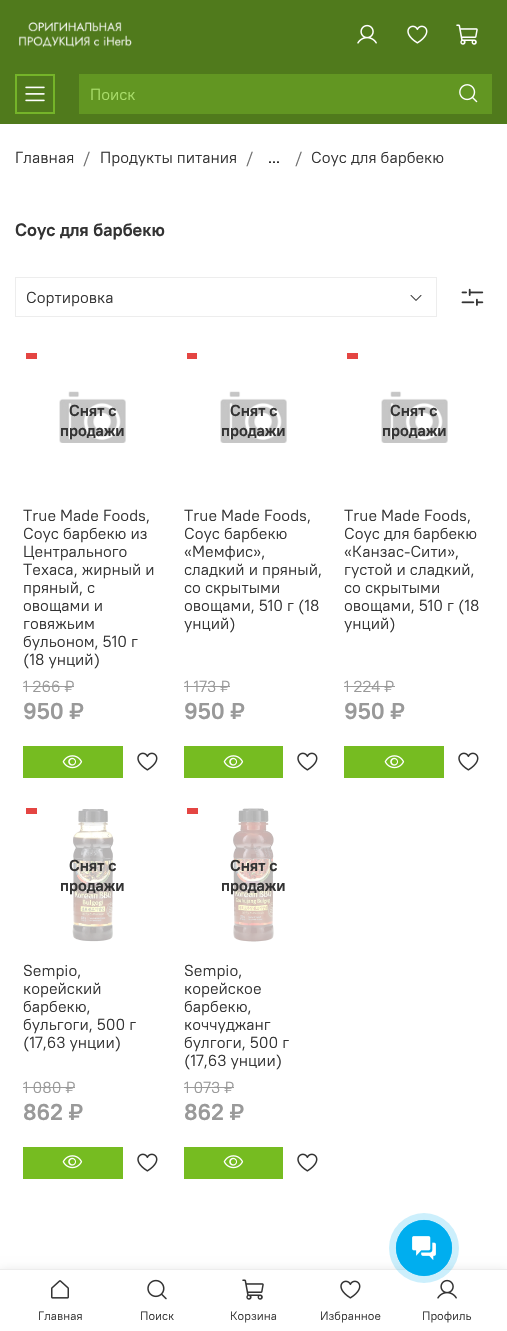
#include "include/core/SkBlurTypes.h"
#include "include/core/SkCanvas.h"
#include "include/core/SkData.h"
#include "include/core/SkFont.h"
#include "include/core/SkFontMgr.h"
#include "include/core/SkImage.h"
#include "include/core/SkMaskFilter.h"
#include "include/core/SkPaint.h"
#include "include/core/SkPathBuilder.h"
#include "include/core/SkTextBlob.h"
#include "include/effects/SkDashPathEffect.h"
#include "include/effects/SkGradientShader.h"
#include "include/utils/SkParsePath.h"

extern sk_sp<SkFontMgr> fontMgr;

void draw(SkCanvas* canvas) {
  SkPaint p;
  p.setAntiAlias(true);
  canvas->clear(SK_ColorWHITE);
  p.setColor(SkColorSetRGB(80, 122, 28));
  canvas->drawRect(SkRect::MakeLTRB(0, 0, 507, 124), p);
  canvas->drawImageRect(SkImages::DeferredFromEncodedData(SkData::MakeFromFileName("images/1.png")), SkRect::MakeLTRB(19, 22, 132, 48), SkSamplingOptions());
  canvas->drawImageRect(SkImages::DeferredFromEncodedData(SkData::MakeFromFileName("images/2.png")), SkRect::MakeLTRB(357, 24, 377, 44), SkSamplingOptions());
  canvas->drawImageRect(SkImages::DeferredFromEncodedData(SkData::MakeFromFileName("images/3.png")), SkRect::MakeLTRB(407, 25, 428, 44), SkSamplingOptions());
  canvas->drawImageRect(SkImages::DeferredFromEncodedData(SkData::MakeFromFileName("images/4.png")), SkRect::MakeLTRB(456, 24, 478, 45), SkSamplingOptions());
  p.setStyle(SkPaint::kStroke_Style);
  p.setStrokeWidth(2);
  p.setColor(SkColorSetRGB(117, 180, 41));
  canvas->drawRect(SkRect::MakeLTRB(16, 75, 54, 113), p);
  canvas->drawImageRect(SkImages::DeferredFromEncodedData(SkData::MakeFromFileName("images/5.png")), SkRect::MakeLTRB(25, 86, 45, 102), SkSamplingOptions());
  p.setStyle(SkPaint::kFill_Style);
  p.setColor(SkColorSetRGB(98, 150, 34));
  canvas->drawRect(SkRect::MakeLTRB(79, 74, 492, 114), p);
  canvas->drawImageRect(SkImages::DeferredFromEncodedData(SkData::MakeFromFileName("images/6.png")), SkRect::MakeLTRB(459, 84, 478, 103), SkSamplingOptions());
  p.setStyle(SkPaint::kStroke_Style);
  p.setStrokeWidth(1);
  p.setColor(SkColorSetRGB(237, 237, 237));
  canvas->drawRect(SkRect::MakeLTRB(15.5f, 277.5f, 436.5f, 316.5f), p);
  canvas->drawImageRect(SkImages::DeferredFromEncodedData(SkData::MakeFromFileName("images/7.png")), SkRect::MakeLTRB(410, 295, 422, 301), SkSamplingOptions());
  canvas->drawImageRect(SkImages::DeferredFromEncodedData(SkData::MakeFromFileName("images/8.png")), SkRect::MakeLTRB(461, 288, 484, 306), SkSamplingOptions());
  p.setStyle(SkPaint::kFill_Style);
  p.setColor(SkColorSetRGB(228, 69, 66));
  canvas->drawRect(SkRect::MakeLTRB(26, 353, 37, 359), p);
  canvas->drawImageRect(SkImages::DeferredFromEncodedData(SkData::MakeFromFileName("images/9.png")), SkRect::MakeLTRB(59, 391, 126, 443), SkSamplingOptions());
  p.setColor(SkColorSetRGB(153, 153, 153));
  canvas->drawRect(SkRect::MakeLTRB(23, 686, 74, 687), p);
  p.setColor(SkColorSetRGB(118, 188, 33));
  canvas->drawRect(SkRect::MakeLTRB(23, 746, 123, 778), p);
  canvas->drawImageRect(SkImages::DeferredFromEncodedData(SkData::MakeFromFileName("images/10.png")), SkRect::MakeLTRB(62, 755, 83, 769), SkSamplingOptions());
  canvas->drawImageRect(SkImages::DeferredFromEncodedData(SkData::MakeFromFileName("images/11.png")), SkRect::MakeLTRB(137, 752, 158, 771), SkSamplingOptions());
  p.setColor(SkColorSetRGB(228, 69, 66));
  canvas->drawRect(SkRect::MakeLTRB(187, 353, 197, 359), p);
  canvas->drawImageRect(SkImages::DeferredFromEncodedData(SkData::MakeFromFileName("images/9.png")), SkRect::MakeLTRB(220, 391, 287, 443), SkSamplingOptions());
  p.setColor(SkColorSetRGB(153, 153, 153));
  canvas->drawRect(SkRect::MakeLTRB(184, 686, 230, 687), p);
  p.setColor(SkColorSetRGB(118, 188, 33));
  canvas->drawRect(SkRect::MakeLTRB(184, 746, 283, 778), p);
  canvas->drawImageRect(SkImages::DeferredFromEncodedData(SkData::MakeFromFileName("images/10.png")), SkRect::MakeLTRB(223, 755, 244, 769), SkSamplingOptions());
  canvas->drawImageRect(SkImages::DeferredFromEncodedData(SkData::MakeFromFileName("images/11.png")), SkRect::MakeLTRB(297, 752, 318, 771), SkSamplingOptions());
  p.setColor(SkColorSetRGB(228, 69, 66));
  canvas->drawRect(SkRect::MakeLTRB(347, 353, 358, 359), p);
  canvas->drawImageRect(SkImages::DeferredFromEncodedData(SkData::MakeFromFileName("images/9.png")), SkRect::MakeLTRB(381, 391, 448, 443), SkSamplingOptions());
  p.setColor(SkColorSetRGB(153, 153, 153));
  canvas->drawRect(SkRect::MakeLTRB(344, 686, 395, 687), p);
  p.setColor(SkColorSetRGB(118, 188, 33));
  canvas->drawRect(SkRect::MakeLTRB(344, 746, 444, 778), p);
  canvas->drawImageRect(SkImages::DeferredFromEncodedData(SkData::MakeFromFileName("images/10.png")), SkRect::MakeLTRB(384, 755, 405, 769), SkSamplingOptions());
  canvas->drawImageRect(SkImages::DeferredFromEncodedData(SkData::MakeFromFileName("images/11.png")), SkRect::MakeLTRB(458, 752, 479, 771), SkSamplingOptions());
  p.setColor(SkColorSetRGB(228, 69, 66));
  canvas->drawRect(SkRect::MakeLTRB(26, 808, 37, 814), p);
  canvas->drawImageRect(SkImages::DeferredFromEncodedData(SkData::MakeFromFileName("images/12.png")), SkRect::MakeLTRB(72, 809, 114, 942), SkSamplingOptions());
  p.setColor(SkColorSetRGB(153, 153, 153));
  canvas->drawRect(SkRect::MakeLTRB(23, 1087, 75, 1088), p);
  p.setColor(SkColorSetRGB(118, 188, 33));
  canvas->drawRect(SkRect::MakeLTRB(23, 1147, 123, 1179), p);
  canvas->drawImageRect(SkImages::DeferredFromEncodedData(SkData::MakeFromFileName("images/10.png")), SkRect::MakeLTRB(62, 1155, 83, 1169), SkSamplingOptions());
  canvas->drawImageRect(SkImages::DeferredFromEncodedData(SkData::MakeFromFileName("images/11.png")), SkRect::MakeLTRB(137, 1153, 158, 1172), SkSamplingOptions());
  p.setColor(SkColorSetRGB(228, 69, 66));
  canvas->drawRect(SkRect::MakeLTRB(187, 808, 198, 814), p);
  canvas->drawImageRect(SkImages::DeferredFromEncodedData(SkData::MakeFromFileName("images/13.png")), SkRect::MakeLTRB(233, 808, 274, 942), SkSamplingOptions());
  p.setColor(SkColorSetRGB(153, 153, 153));
  canvas->drawRect(SkRect::MakeLTRB(184, 1087, 234, 1088), p);
  p.setColor(SkColorSetRGB(118, 188, 33));
  canvas->drawRect(SkRect::MakeLTRB(184, 1147, 283, 1179), p);
  canvas->drawImageRect(SkImages::DeferredFromEncodedData(SkData::MakeFromFileName("images/10.png")), SkRect::MakeLTRB(223, 1155, 244, 1169), SkSamplingOptions());
  canvas->drawImageRect(SkImages::DeferredFromEncodedData(SkData::MakeFromFileName("images/11.png")), SkRect::MakeLTRB(297, 1153, 318, 1172), SkSamplingOptions());
  p.setColor(SkColorSetARGB(31, 0, 0, 0));
  p.setMaskFilter(SkMaskFilter::MakeBlur(kNormal_SkBlurStyle, 5));
  canvas->drawRect(SkRect::MakeLTRB(0, 1271, 507, 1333), p);
  p.setMaskFilter(nullptr);
  p.setColor(SK_ColorWHITE);
  canvas->drawRect(SkRect::MakeLTRB(0, 1270, 507, 1331), p);
  p.setColor(SkColorSetRGB(237, 237, 237));
  canvas->drawRect(SkRect::MakeLTRB(0, 1269, 507, 1270), p);
  canvas->drawImageRect(SkImages::DeferredFromEncodedData(SkData::MakeFromFileName("images/18.png")), SkRect::MakeLTRB(437, 1279, 457, 1299), SkSamplingOptions());
  p.setColor(SkColorSetARGB(51, 0, 174, 239));
  canvas->drawCircle(424, 1248, 35, p);
  p.setStyle(SkPaint::kStroke_Style);
  p.setStrokeWidth(0.8f);
  p.setColor(SkColorSetRGB(0, 174, 239));
  canvas->drawCircle(424, 1248, 27.6f, p);
  p.setStyle(SkPaint::kFill_Style);
  canvas->drawCircle(424, 1248, 28, p);
  canvas->drawImageRect(SkImages::DeferredFromEncodedData(SkData::MakeFromFileName("images/14.png")), SkRect::MakeLTRB(412, 1236, 436, 1260), SkSamplingOptions());
  canvas->drawImageRect(SkImages::DeferredFromEncodedData(SkData::MakeFromFileName("images/15.png")), SkRect::MakeLTRB(51, 1280, 69, 1299), SkSamplingOptions());
  canvas->drawImageRect(SkImages::DeferredFromEncodedData(SkData::MakeFromFileName("images/16.png")), SkRect::MakeLTRB(147, 1279, 167, 1300), SkSamplingOptions());
  canvas->drawImageRect(SkImages::DeferredFromEncodedData(SkData::MakeFromFileName("images/17.png")), SkRect::MakeLTRB(242, 1279, 264, 1300), SkSamplingOptions());
  canvas->drawImageRect(SkImages::DeferredFromEncodedData(SkData::MakeFromFileName("images/11.png")), SkRect::MakeLTRB(340, 1280, 361, 1299), SkSamplingOptions());
  SkFont font1(fontMgr->matchFamilyStyle("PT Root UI", SkFontStyle::Normal()), 16);
  font1.setSubpixel(true);
  p.setColor(SkColorSetRGB(170, 222, 107));
  canvas->drawString("Поиск", 90, 100, font1, p);
  p.setColor(SkColorSetRGB(51, 51, 51));
  canvas->drawString("Главная", 15, 163, font1, p);
  p.setColor(SkColorSetRGB(112, 112, 112));
  canvas->drawString("/", 83, 163, font1, p);
  p.setColor(SkColorSetRGB(51, 51, 51));
  canvas->drawString("Продукты питания", 100, 163, font1, p);
  p.setColor(SkColorSetRGB(112, 112, 112));
  canvas->drawString("/", 246, 163, font1, p);
  p.setColor(SK_ColorBLACK);
  canvas->drawString("...", 268, 163, font1, p);
  p.setColor(SkColorSetRGB(112, 112, 112));
  canvas->drawString("/", 295, 163, font1, p);
  p.setColor(SkColorSetRGB(51, 51, 51));
  canvas->drawString("Соус для барбекю", 311, 163, font1, p);
  SkFont font2(fontMgr->matchFamilyStyle("PT Root UI", SkFontStyle::Bold()), 18);
  font2.setSubpixel(true);
  canvas->drawString("Соус для барбекю", 15, 236, font2, p);
  canvas->drawString("Сортировка", 26, 303, font1, p);
  SkFont font3(fontMgr->matchFamilyStyle("PT Root UI", SkFontStyle::Bold()), 16);
  font3.setSubpixel(true);
  canvas->drawString("Снят с", 69, 416, font3, p);
  canvas->drawString("продажи", 60, 436, font3, p);
  canvas->drawString("True Made Foods,", 23, 521, font1, p);
  canvas->drawString("Соус барбекю из", 23, 539, font1, p);
  canvas->drawString("Центрального", 23, 557, font1, p);
  canvas->drawString("Техаса, жирный и", 23, 575, font1, p);
  canvas->drawString("пряный, с", 23, 593, font1, p);
  canvas->drawString("овощами и", 23, 611, font1, p);
  canvas->drawString("говяжьим", 23, 629, font1, p);
  canvas->drawString("бульоном, 510 г", 23, 647, font1, p);
  canvas->drawString("(18 унций)", 23, 665, font1, p);
  p.setColor(SkColorSetRGB(153, 153, 153));
  canvas->drawString("1 266 ₽", 23, 692, font1, p);
  SkFont font4(fontMgr->matchFamilyStyle("PT Root UI", SkFontStyle::Bold()), 23);
  font4.setSubpixel(true);
  canvas->drawString("950 ₽", 23, 719, font4, p);
  p.setColor(SkColorSetRGB(51, 51, 51));
  canvas->drawString("Снят с", 230, 416, font3, p);
  canvas->drawString("продажи", 221, 436, font3, p);
  canvas->drawString("True Made Foods,", 184, 521, font1, p);
  canvas->drawString("Соус барбекю", 184, 539, font1, p);
  canvas->drawString("«Мемфис»,", 184, 557, font1, p);
  canvas->drawString("сладкий и пряный,", 184, 575, font1, p);
  canvas->drawString("со скрытыми", 184, 593, font1, p);
  canvas->drawString("овощами, 510 г (18", 184, 611, font1, p);
  canvas->drawString("унций)", 184, 629, font1, p);
  p.setColor(SkColorSetRGB(153, 153, 153));
  canvas->drawString("1 173 ₽", 184, 692, font1, p);
  canvas->drawString("950 ₽", 184, 719, font4, p);
  p.setColor(SkColorSetRGB(51, 51, 51));
  canvas->drawString("Снят с", 390, 416, font3, p);
  canvas->drawString("продажи", 382, 436, font3, p);
  canvas->drawString("True Made Foods,", 344, 521, font1, p);
  canvas->drawString("Соус для барбекю", 344, 539, font1, p);
  canvas->drawString("«Канзас-Сити»,", 344, 557, font1, p);
  canvas->drawString("густой и сладкий,", 344, 575, font1, p);
  canvas->drawString("со скрытыми", 344, 593, font1, p);
  canvas->drawString("овощами, 510 г (18", 344, 611, font1, p);
  canvas->drawString("унций)", 344, 629, font1, p);
  p.setColor(SkColorSetRGB(153, 153, 153));
  canvas->drawString("1 224 ₽", 344, 692, font1, p);
  canvas->drawString("950 ₽", 344, 719, font4, p);
  p.setColor(SkColorSetRGB(51, 51, 51));
  canvas->drawString("Снят с", 69, 871, font3, p);
  canvas->drawString("продажи", 60, 891, font3, p);
  canvas->drawString("Sempio,", 23, 976, font1, p);
  canvas->drawString("корейский", 23, 994, font1, p);
  canvas->drawString("барбекю,", 23, 1012, font1, p);
  canvas->drawString("бульгоги, 500 г", 23, 1030, font1, p);
  canvas->drawString("(17,63 унции)", 23, 1048, font1, p);
  p.setColor(SkColorSetRGB(153, 153, 153));
  canvas->drawString("1 080 ₽", 23, 1093, font1, p);
  canvas->drawString("862 ₽", 23, 1120, font4, p);
  p.setColor(SkColorSetRGB(51, 51, 51));
  canvas->drawString("Снят с", 230, 871, font3, p);
  canvas->drawString("продажи", 221, 891, font3, p);
  canvas->drawString("Sempio,", 184, 976, font1, p);
  canvas->drawString("корейское", 184, 994, font1, p);
  canvas->drawString("барбекю,", 184, 1012, font1, p);
  canvas->drawString("коччуджанг", 184, 1030, font1, p);
  canvas->drawString("булгоги, 500 г", 184, 1048, font1, p);
  canvas->drawString("(17,63 унции)", 184, 1066, font1, p);
  p.setColor(SkColorSetRGB(153, 153, 153));
  canvas->drawString("1 073 ₽", 184, 1093, font1, p);
  canvas->drawString("862 ₽", 184, 1120, font4, p);
  SkFont font5(fontMgr->matchFamilyStyle("PT Root UI", SkFontStyle::Normal()), 12);
  font5.setSubpixel(true);
  p.setColor(SkColorSetRGB(51, 51, 51));
  canvas->drawString("Главная", 38, 1320, font5, p);
  canvas->drawString("Поиск", 140, 1320, font5, p);
  canvas->drawString("Корзина", 230, 1320, font5, p);
  canvas->drawString("Избранное", 320, 1320, font5, p);
  canvas->drawString("Профиль", 422, 1320, font5, p);
}
